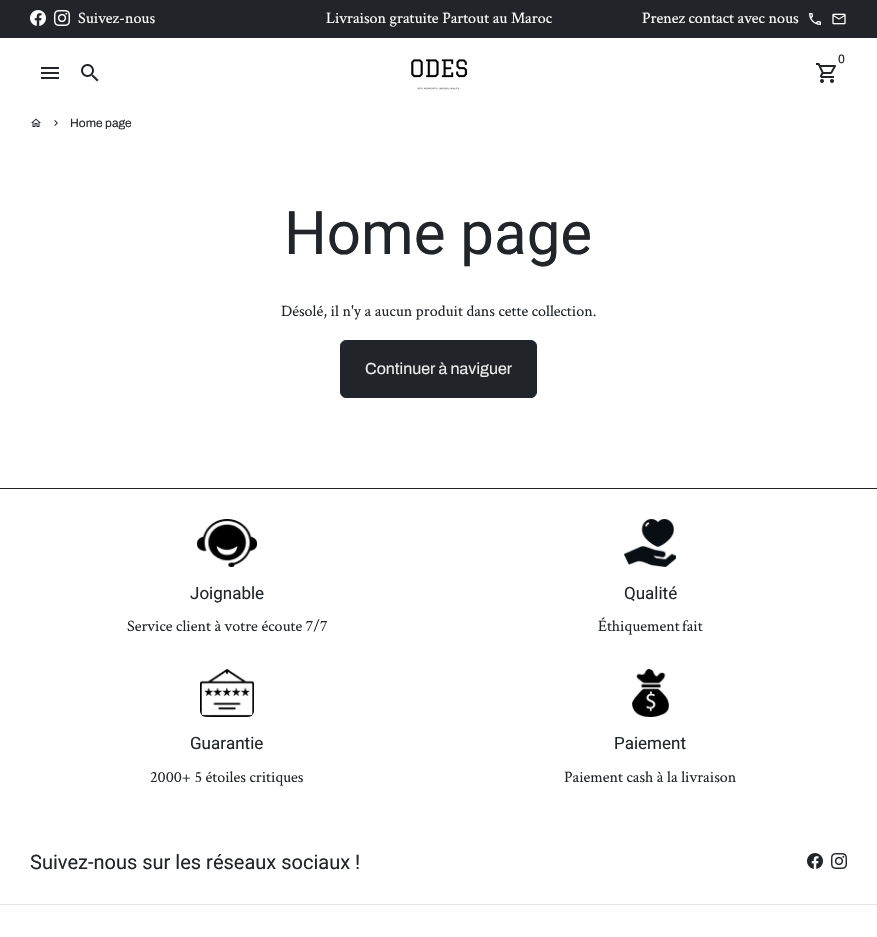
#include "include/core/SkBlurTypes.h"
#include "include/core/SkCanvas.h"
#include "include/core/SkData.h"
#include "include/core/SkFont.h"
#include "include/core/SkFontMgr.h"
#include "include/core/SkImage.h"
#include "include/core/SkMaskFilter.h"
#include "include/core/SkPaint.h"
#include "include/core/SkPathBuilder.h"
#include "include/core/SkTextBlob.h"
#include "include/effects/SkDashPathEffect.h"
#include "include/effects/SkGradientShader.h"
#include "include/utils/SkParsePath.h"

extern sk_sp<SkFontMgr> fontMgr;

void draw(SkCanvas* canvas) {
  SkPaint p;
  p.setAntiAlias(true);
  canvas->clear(SK_ColorWHITE);
  p.setColor(SkColorSetRGB(33, 37, 41));
  canvas->drawRect(SkRect::MakeLTRB(0, 0, 877, 38), p);
  canvas->drawImageRect(SkImages::DeferredFromEncodedData(SkData::MakeFromFileName("images/1.png")), SkRect::MakeLTRB(30, 10, 46, 26), SkSamplingOptions());
  canvas->drawImageRect(SkImages::DeferredFromEncodedData(SkData::MakeFromFileName("images/2.png")), SkRect::MakeLTRB(54, 10, 70, 26), SkSamplingOptions());
  canvas->drawImageRect(SkImages::DeferredFromEncodedData(SkData::MakeFromFileName("images/3.png")), SkRect::MakeLTRB(809, 13, 821, 25), SkSamplingOptions());
  canvas->drawImageRect(SkImages::DeferredFromEncodedData(SkData::MakeFromFileName("images/4.png")), SkRect::MakeLTRB(832, 13, 846, 25), SkSamplingOptions());
  canvas->drawImageRect(SkImages::DeferredFromEncodedData(SkData::MakeFromFileName("images/5.png")), SkRect::MakeLTRB(41, 67, 59, 79), SkSamplingOptions());
  canvas->drawImageRect(SkImages::DeferredFromEncodedData(SkData::MakeFromFileName("images/6.png")), SkRect::MakeLTRB(81, 64, 99, 82), SkSamplingOptions());
  canvas->drawImageRect(SkImages::DeferredFromEncodedData(SkData::MakeFromFileName("images/7.png")), SkRect::MakeLTRB(409, 57, 469, 90), SkSamplingOptions());
  canvas->drawImageRect(SkImages::DeferredFromEncodedData(SkData::MakeFromFileName("images/8.png")), SkRect::MakeLTRB(816, 63, 836, 83), SkSamplingOptions());
  canvas->drawImageRect(SkImages::DeferredFromEncodedData(SkData::MakeFromFileName("images/9.png")), SkRect::MakeLTRB(31, 118, 41, 127), SkSamplingOptions());
  canvas->drawImageRect(SkImages::DeferredFromEncodedData(SkData::MakeFromFileName("images/10.png")), SkRect::MakeLTRB(54, 120, 58, 126), SkSamplingOptions());
  canvas->drawRoundRect(SkRect::MakeLTRB(340.5f, 340.5f, 536.5f, 397.5f), 5.5f, 5.5f, p);
  p.setStyle(SkPaint::kStroke_Style);
  p.setStrokeWidth(1);
  canvas->drawRoundRect(SkRect::MakeLTRB(340.5f, 340.5f, 536.5f, 397.5f), 5.5f, 5.5f, p);
  p.setStyle(SkPaint::kFill_Style);
  canvas->drawRect(SkRect::MakeLTRB(0, 488, 877, 489), p);
  canvas->drawImageRect(SkImages::DeferredFromEncodedData(SkData::MakeFromFileName("images/11.png")), SkRect::MakeLTRB(197, 519, 257, 567), SkSamplingOptions());
  canvas->drawImageRect(SkImages::DeferredFromEncodedData(SkData::MakeFromFileName("images/12.png")), SkRect::MakeLTRB(624, 519, 676, 567), SkSamplingOptions());
  canvas->drawImageRect(SkImages::DeferredFromEncodedData(SkData::MakeFromFileName("images/13.png")), SkRect::MakeLTRB(200, 669, 254, 717), SkSamplingOptions());
  canvas->drawImageRect(SkImages::DeferredFromEncodedData(SkData::MakeFromFileName("images/14.png")), SkRect::MakeLTRB(632, 669, 669, 717), SkSamplingOptions());
  p.setColor(SkColorSetRGB(229, 229, 229));
  canvas->drawRect(SkRect::MakeLTRB(0, 904, 877, 905), p);
  canvas->drawImageRect(SkImages::DeferredFromEncodedData(SkData::MakeFromFileName("images/15.png")), SkRect::MakeLTRB(807, 853, 823, 869), SkSamplingOptions());
  canvas->drawImageRect(SkImages::DeferredFromEncodedData(SkData::MakeFromFileName("images/16.png")), SkRect::MakeLTRB(831, 853, 847, 869), SkSamplingOptions());
  SkFont font1(fontMgr->matchFamilyStyle("Crimson Text", SkFontStyle::Normal()), 16);
  font1.setSubpixel(true);
  p.setColor(SK_ColorWHITE);
  canvas->drawString("Suivez-nous", 78, 23, font1, p);
  canvas->drawString("Livraison gratuite Partout au Maroc", 326, 23, font1, p);
  canvas->drawString("Prenez contact avec nous", 642, 23, font1, p);
  SkFont font2(fontMgr->matchFamilyStyle("Archivo", SkFontStyle::Normal()), 12);
  font2.setSubpixel(true);
  p.setColor(SkColorSetRGB(33, 37, 41));
  canvas->drawString("0", 838, 63, font2, p);
  canvas->drawString("Home page", 70, 127, font2, p);
  SkFont font3(fontMgr->matchFamilyStyle("Roboto", SkFontStyle::Normal()), 60);
  font3.setSubpixel(true);
  canvas->drawString("Home page", 284, 254, font3, p);
  canvas->drawString("Désolé, il n'y a aucun produit dans cette collection.", 281, 316, font1, p);
  SkFont font4(fontMgr->matchFamilyStyle("Archivo", SkFontStyle::Normal()), 16);
  font4.setSubpixel(true);
  p.setColor(SkColorSetRGB(236, 236, 236));
  canvas->drawString("Continuer à naviguer", 365, 374, font4, p);
  SkFont font5(fontMgr->matchFamilyStyle("Roboto", SkFontStyle::Normal()), 17);
  font5.setSubpixel(true);
  p.setColor(SkColorSetRGB(33, 37, 41));
  canvas->drawString("Joignable", 190, 599, font5, p);
  canvas->drawString("Service client à votre écoute 7/7", 127, 631, font1, p);
  canvas->drawString("Qualité", 624, 599, font5, p);
  canvas->drawString("Éthiquement", 598, 631, font1, p);
  canvas->drawString("fait", 682, 631, font1, p);
  canvas->drawString("Guarantie", 190, 749, font5, p);
  canvas->drawString("2000+ 5 étoiles critiques", 150, 782, font1, p);
  canvas->drawString("Paiement", 614, 749, font5, p);
  canvas->drawString("Paiement cash à la livraison", 564, 782, font1, p);
  SkFont font6(fontMgr->matchFamilyStyle("Roboto", SkFontStyle::Normal()), 20);
  font6.setSubpixel(true);
  canvas->drawString("Suivez-nous sur les réseaux sociaux !", 30, 869, font6, p);
}
